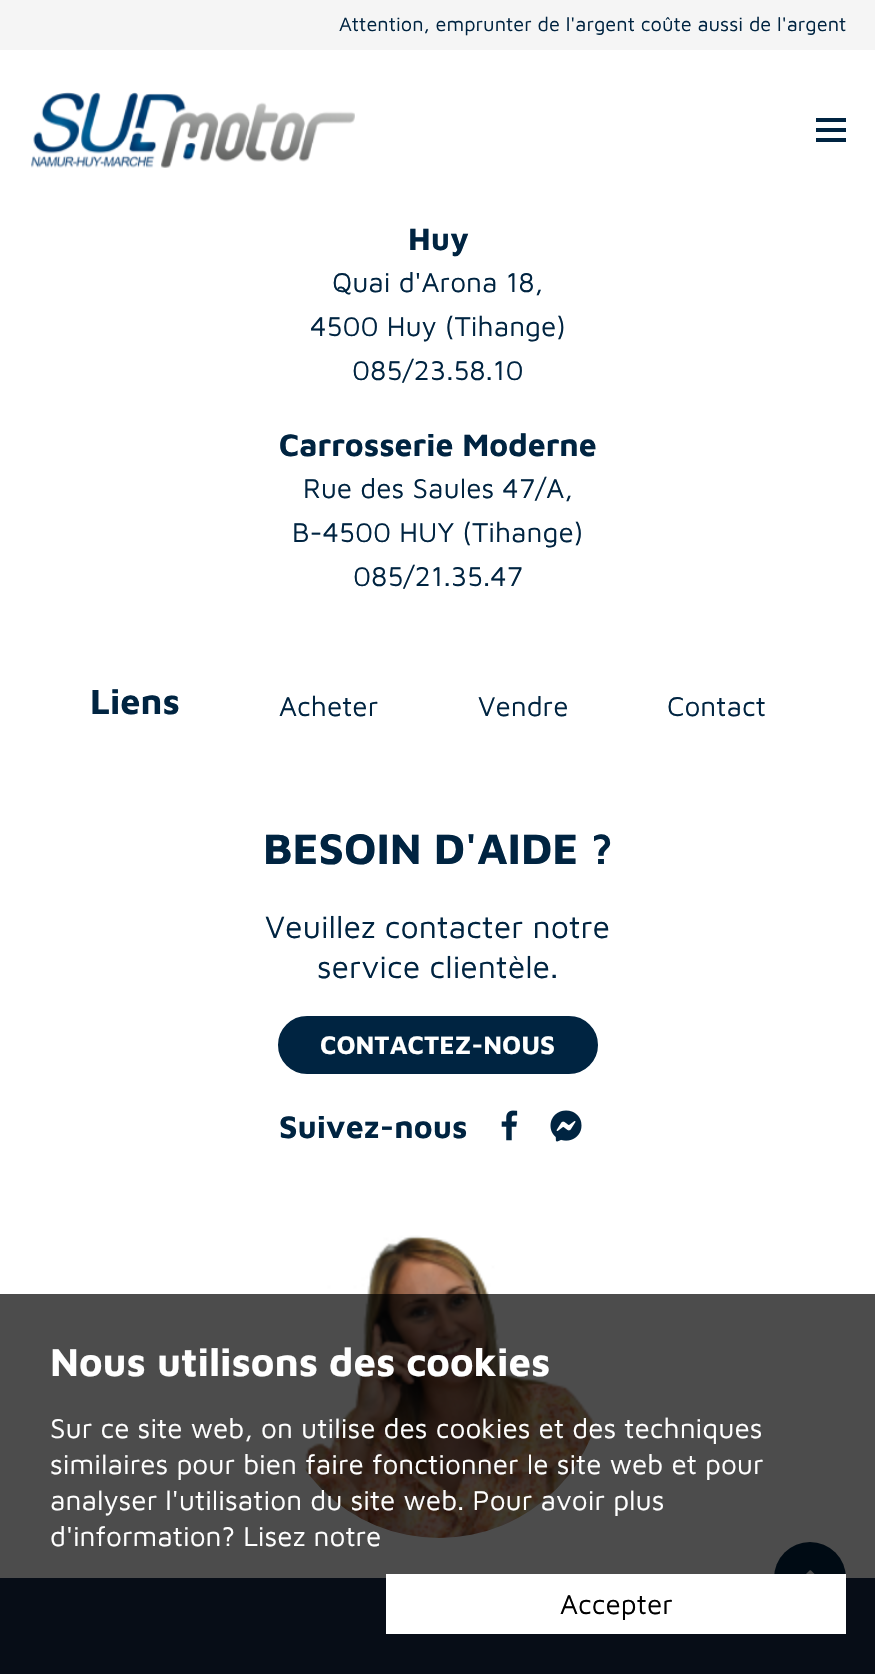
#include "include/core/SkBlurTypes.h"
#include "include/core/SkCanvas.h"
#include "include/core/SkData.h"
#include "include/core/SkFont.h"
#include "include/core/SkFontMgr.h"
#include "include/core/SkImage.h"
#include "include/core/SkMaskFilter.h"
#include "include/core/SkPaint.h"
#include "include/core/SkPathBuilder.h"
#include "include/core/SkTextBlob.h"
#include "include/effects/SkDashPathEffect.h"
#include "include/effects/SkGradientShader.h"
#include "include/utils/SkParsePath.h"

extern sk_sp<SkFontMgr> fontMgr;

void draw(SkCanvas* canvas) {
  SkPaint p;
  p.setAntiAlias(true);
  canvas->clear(SK_ColorWHITE);
  p.setColor(SkColorSetRGB(245, 245, 245));
  canvas->drawRect(SkRect::MakeLTRB(0, 0, 875, 50), p);
  canvas->drawImageRect(SkImages::DeferredFromEncodedData(SkData::MakeFromFileName("images/1.png")), SkRect::MakeLTRB(31, 92, 355, 168), SkSamplingOptions());
  p.setColor(SkColorSetRGB(0, 36, 65));
  canvas->drawRect(SkRect::MakeLTRB(816, 128, 846, 132), p);
  canvas->drawRect(SkRect::MakeLTRB(816, 118, 846, 122), p);
  canvas->drawRect(SkRect::MakeLTRB(816, 138, 846, 142), p);
  canvas->drawRoundRect(SkRect::MakeLTRB(279, 1017, 597, 1073), 28, 28, p);
  p.setStyle(SkPaint::kStroke_Style);
  p.setStrokeWidth(2);
  canvas->drawRoundRect(SkRect::MakeLTRB(279, 1017, 597, 1073), 28, 28, p);
  canvas->drawImageRect(SkImages::DeferredFromEncodedData(SkData::MakeFromFileName("images/2.png")), SkRect::MakeLTRB(501, 1110, 518, 1141), SkSamplingOptions());
  canvas->drawImageRect(SkImages::DeferredFromEncodedData(SkData::MakeFromFileName("images/3.png")), SkRect::MakeLTRB(550, 1110, 582, 1142), SkSamplingOptions());
  canvas->drawImageRect(SkImages::DeferredFromEncodedData(SkData::MakeFromFileName("images/4.png")), SkRect::MakeLTRB(305, 1235, 596, 1538), SkSamplingOptions());
  p.setStyle(SkPaint::kFill_Style);
  p.setColor(SkColorSetRGB(23, 43, 76));
  canvas->drawRect(SkRect::MakeLTRB(0, 1578, 875, 1674), p);
  p.setColor(SkColorSetRGB(0, 36, 65));
  canvas->drawCircle(810, 1578, 36, p);
  canvas->drawImageRect(SkImages::DeferredFromEncodedData(SkData::MakeFromFileName("images/5.png")), SkRect::MakeLTRB(806, 1570, 815, 1574), SkSamplingOptions());
  p.setColor(SkColorSetARGB(179, 0, 0, 0));
  canvas->drawRect(SkRect::MakeLTRB(0, 1294, 875, 1674), p);
  p.setColor(SK_ColorWHITE);
  canvas->drawRect(SkRect::MakeLTRB(386, 1574, 846, 1634), p);
  SkFont font1(fontMgr->matchFamilyStyle("Maven Pro", SkFontStyle::Normal()), 20);
  font1.setSubpixel(true);
  p.setColor(SkColorSetRGB(0, 36, 65));
  canvas->drawString("Attention, emprunter de l'argent coûte aussi de l'argent", 339, 31, font1, p);
  SkFont font2(fontMgr->matchFamilyStyle("Maven Pro", SkFontStyle::Bold()), 32);
  font2.setSubpixel(true);
  canvas->drawString("Huy", 408, 250, font2, p);
  SkFont font3(fontMgr->matchFamilyStyle("Maven Pro", SkFontStyle::Normal()), 28);
  font3.setSubpixel(true);
  canvas->drawString("Quai d'Arona 18,", 332, 292, font3, p);
  canvas->drawString("4500 Huy (Tihange)", 310, 336, font3, p);
  canvas->drawString("085/23.58.10", 352, 380, font3, p);
  canvas->drawString("Carrosserie Moderne", 279, 456, font2, p);
  canvas->drawString("Rue des Saules 47/A,", 303, 498, font3, p);
  canvas->drawString("B-4500 HUY (Tihange)", 292, 542, font3, p);
  canvas->drawString("085/21.35.47", 353, 586, font3, p);
  SkFont font4(fontMgr->matchFamilyStyle("Maven Pro", SkFontStyle::Bold()), 36);
  font4.setSubpixel(true);
  canvas->drawString("Liens", 90, 714, font4, p);
  canvas->drawString("Acheter", 279, 716, font3, p);
  canvas->drawString("Vendre", 478, 716, font3, p);
  canvas->drawString("Contact", 667, 716, font3, p);
  SkFont font5(fontMgr->matchFamilyStyle("Maven Pro", SkFontStyle::Bold()), 44);
  font5.setSubpixel(true);
  canvas->drawString("BESOIN D'AIDE ?", 263, 864, font5, p);
  SkFont font6(fontMgr->matchFamilyStyle("Maven Pro", SkFontStyle::Normal()), 32);
  font6.setSubpixel(true);
  canvas->drawString("Veuillez contacter notre", 265, 938, font6, p);
  canvas->drawString("service clientèle.", 317, 978, font6, p);
  SkFont font7(fontMgr->matchFamilyStyle("Maven Pro", SkFontStyle::Bold()), 26);
  font7.setSubpixel(true);
  p.setColor(SK_ColorWHITE);
  canvas->drawString("CONTACTEZ-NOUS", 320, 1054, font7, p);
  p.setColor(SkColorSetRGB(0, 36, 65));
  canvas->drawString("Suivez-nous", 279, 1138, font2, p);
  SkFont font8(fontMgr->matchFamilyStyle("Maven Pro", SkFontStyle::Bold()), 40);
  font8.setSubpixel(true);
  p.setColor(SK_ColorWHITE);
  canvas->drawString("Nous utilisons des cookies", 50, 1376, font8, p);
  canvas->drawString("Sur ce site web, on utilise des cookies et des techniques", 50, 1438, font3, p);
  canvas->drawString("similaires pour bien faire fonctionner le site web et pour", 50, 1474, font3, p);
  canvas->drawString("analyser l'utilisation du site web. Pour avoir plus", 50, 1510, font3, p);
  canvas->drawString("d'information? Lisez notre", 50, 1546, font3, p);
  p.setColor(SK_ColorBLACK);
  canvas->drawString("Accepter", 560, 1614, font3, p);
}
